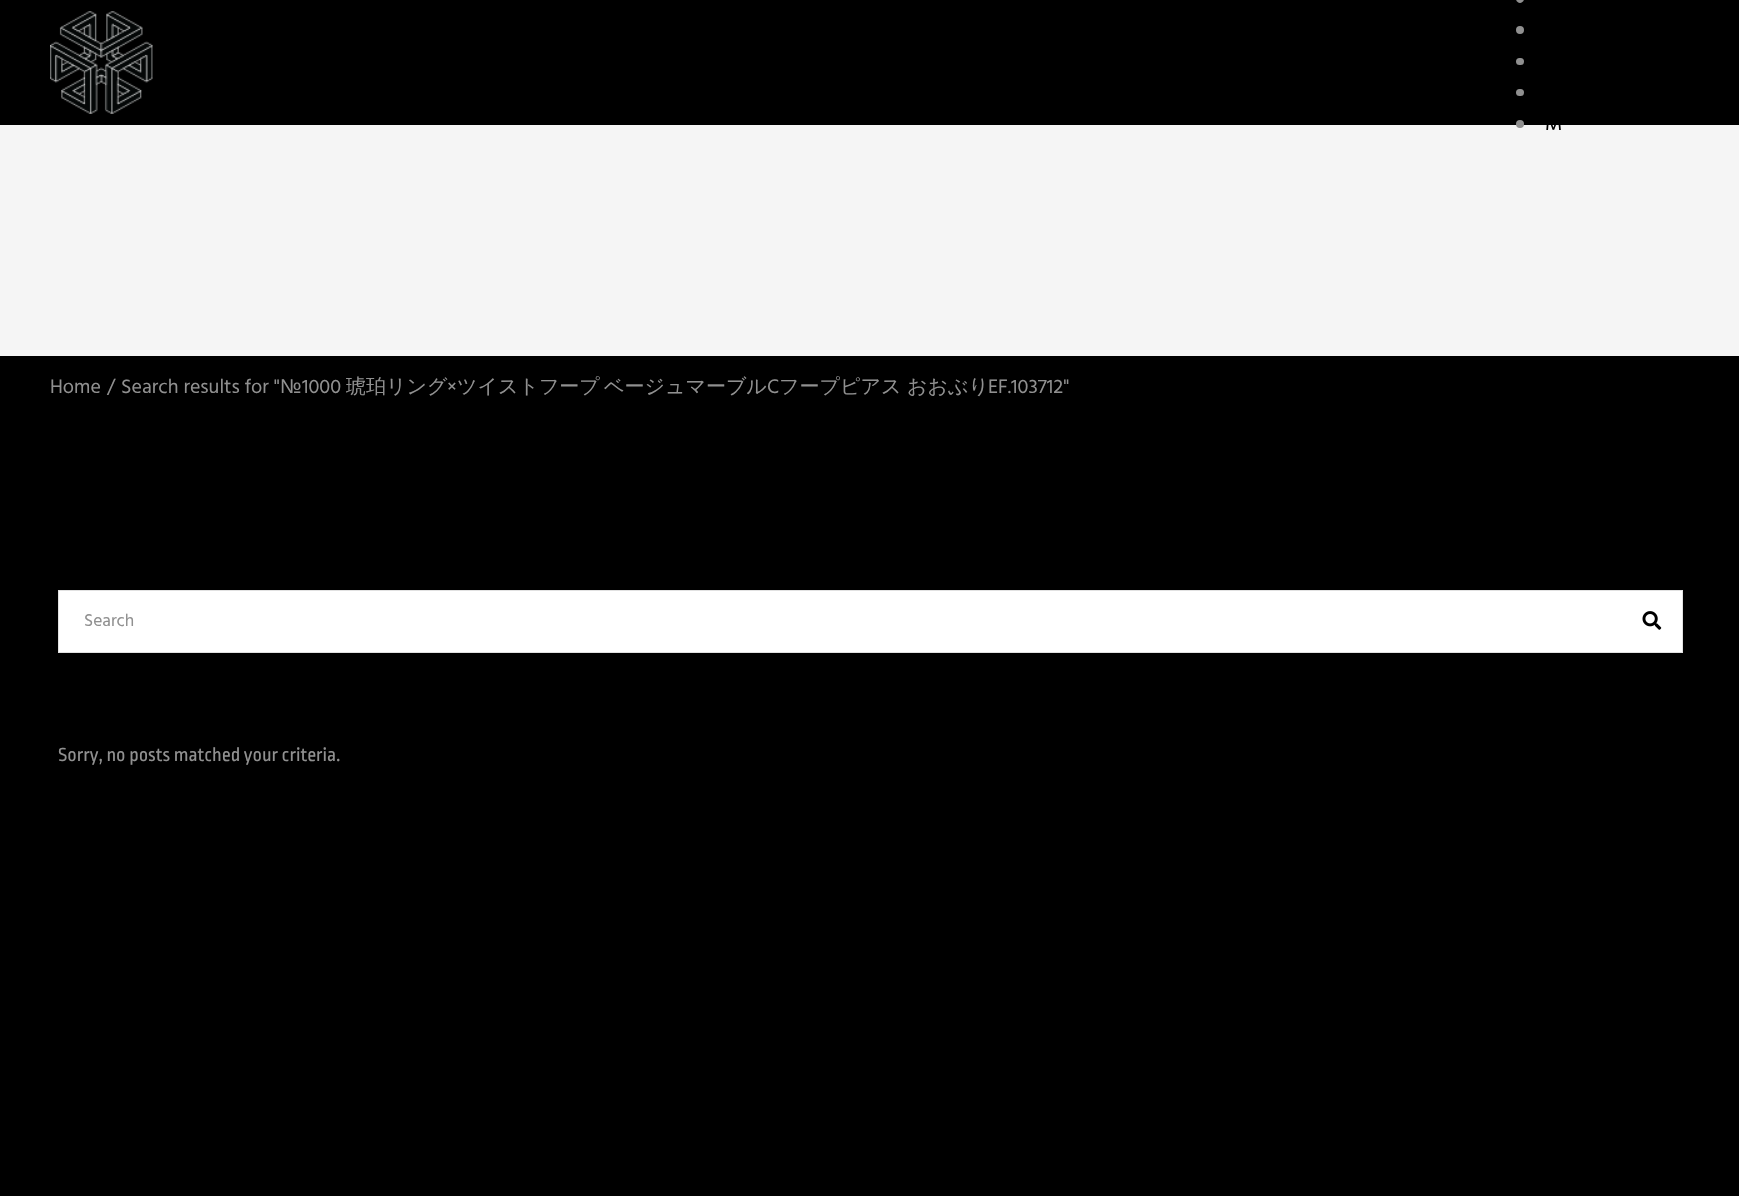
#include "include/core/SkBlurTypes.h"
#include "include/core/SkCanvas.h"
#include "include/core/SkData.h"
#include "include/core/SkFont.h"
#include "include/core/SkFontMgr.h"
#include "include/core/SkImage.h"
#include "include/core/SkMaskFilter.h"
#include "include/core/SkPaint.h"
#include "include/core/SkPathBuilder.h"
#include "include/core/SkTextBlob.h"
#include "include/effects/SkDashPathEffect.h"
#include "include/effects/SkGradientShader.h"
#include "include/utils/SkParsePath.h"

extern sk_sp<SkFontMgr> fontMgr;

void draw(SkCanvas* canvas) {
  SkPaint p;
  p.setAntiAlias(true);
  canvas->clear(SK_ColorBLACK);
  canvas->drawImageRect(SkImages::DeferredFromEncodedData(SkData::MakeFromFileName("images/1.png")), SkRect::MakeLTRB(50, 11, 153, 114), SkSamplingOptions());
  p.setColor(SkColorSetRGB(144, 144, 144));
  canvas->drawPath(SkPathBuilder().moveTo(1516, 0).lineTo(1524, 0).lineTo(1524, -1).cubicTo(1524, 1, 1522, 3, 1520, 3).cubicTo(1518, 3, 1516, 1, 1516, -1).close().detach(), p);
  canvas->drawCircle(1520, 30, 4, p);
  canvas->drawRoundRect(SkRect::MakeLTRB(1516, 58, 1524, 65), 3.5f, 3.5f, p);
  canvas->drawRoundRect(SkRect::MakeLTRB(1516, 89, 1524, 96), 3.5f, 3.5f, p);
  p.setColor(SkColorSetRGB(245, 245, 245));
  canvas->drawRect(SkRect::MakeLTRB(0, 125, 1739, 356), p);
  p.setColor(SkColorSetRGB(144, 144, 144));
  canvas->drawCircle(1520, 124, 4, p);
  p.setColor(SK_ColorWHITE);
  canvas->drawRect(SkRect::MakeLTRB(58.5f, 590.5f, 1682.5f, 652.5f), p);
  p.setStyle(SkPaint::kStroke_Style);
  p.setStrokeWidth(1);
  p.setColor(SkColorSetRGB(225, 225, 225));
  canvas->drawRect(SkRect::MakeLTRB(58.5f, 590.5f, 1682.5f, 652.5f), p);
  canvas->drawImageRect(SkImages::DeferredFromEncodedData(SkData::MakeFromFileName("images/2.png")), SkRect::MakeLTRB(1642, 611, 1662, 630), SkSamplingOptions());
  SkFont font1(fontMgr->matchFamilyStyle("Hind", SkFontStyle::Normal()), 20);
  font1.setSubpixel(true);
  p.setStyle(SkPaint::kFill_Style);
  p.setColor(SK_ColorBLACK);
  canvas->drawString("M", 1545, 130, font1, p);
  p.setColor(SkColorSetRGB(144, 144, 144));
  canvas->drawString("Home", 50, 393, font1, p);
  canvas->drawString("/", 107, 393, font1, p);
  canvas->drawString("Search results for \"", 121, 393, font1, p);
  SkFont font2(fontMgr->matchFamilyStyle("Liberation Sans", SkFontStyle::Normal()), 20);
  font2.setSubpixel(true);
  canvas->drawString("№", 280, 393, font2, p);
  canvas->drawString("1000", 302, 393, font1, p);
  SkFont font3(fontMgr->matchFamilyStyle("WenQuanYi Zen Hei", SkFontStyle(500, SkFontStyle::kNormal_Width, SkFontStyle::kUpright_Slant)), 20);
  font3.setSubpixel(true);
  canvas->drawString("琥珀リング", 346, 393, font3, p);
  canvas->drawString("×", 447, 393, font1, p);
  canvas->drawString("ツイストフープ", 457, 393, font3, p);
  canvas->drawString("ベージュマーブル", 604, 393, font3, p);
  canvas->drawString("C", 767, 393, font1, p);
  canvas->drawString("フープピアス", 779, 393, font3, p);
  canvas->drawString("おおぶり", 907, 393, font3, p);
  canvas->drawString("EF.103712\"", 988, 393, font1, p);
  SkFont font4(fontMgr->matchFamilyStyle("Hind", SkFontStyle::Normal()), 17.5f);
  font4.setSubpixel(true);
  canvas->drawString("Search", 84, 626, font4, p);
  SkFont font5(fontMgr->matchFamilyStyle("Ropa Sans", SkFontStyle::Normal()), 20);
  font5.setSubpixel(true);
  canvas->drawString("Sorry, no posts matched your criteria.", 58, 761, font5, p);
}
